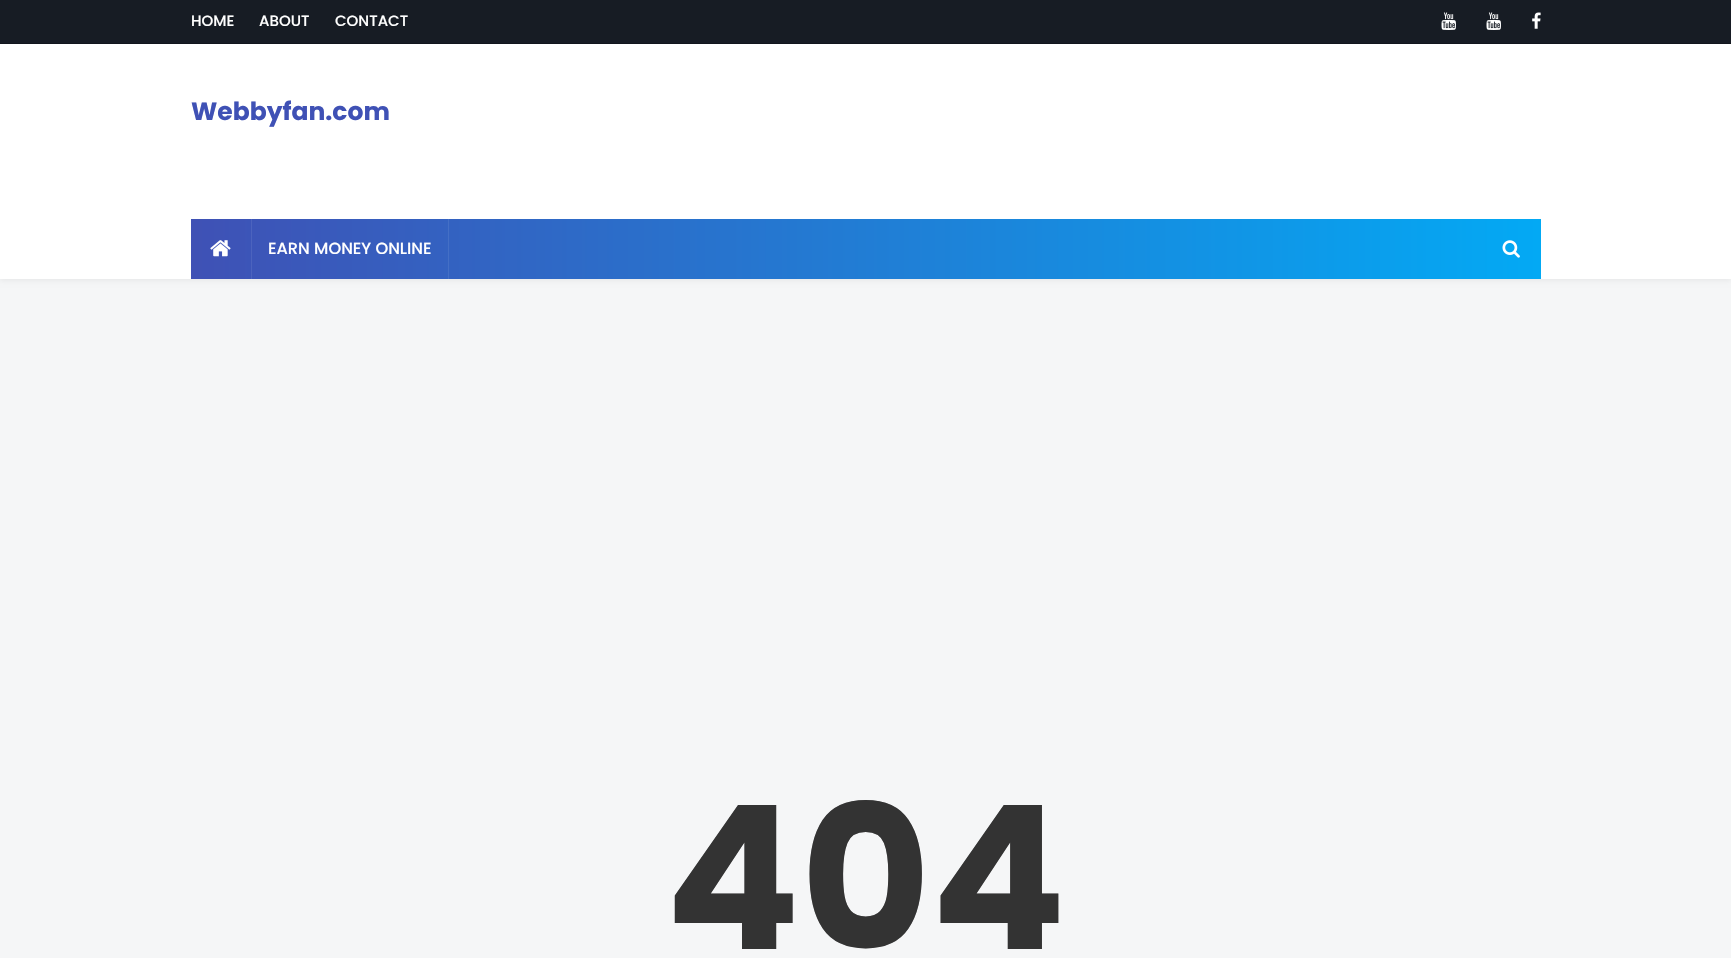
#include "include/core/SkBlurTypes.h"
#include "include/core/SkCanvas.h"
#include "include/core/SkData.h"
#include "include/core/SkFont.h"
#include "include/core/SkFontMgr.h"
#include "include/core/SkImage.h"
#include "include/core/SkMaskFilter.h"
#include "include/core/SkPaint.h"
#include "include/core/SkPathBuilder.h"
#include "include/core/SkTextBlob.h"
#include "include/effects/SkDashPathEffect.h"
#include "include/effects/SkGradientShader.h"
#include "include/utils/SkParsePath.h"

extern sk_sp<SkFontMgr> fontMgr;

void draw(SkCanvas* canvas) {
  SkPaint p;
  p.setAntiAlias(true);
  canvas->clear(SkColorSetRGB(245, 246, 247));
  p.setColor(SkColorSetRGB(23, 28, 36));
  canvas->drawRect(SkRect::MakeLTRB(0, 0, 1731, 43), p);
  p.setColor(SkColorSetRGB(18, 22, 29));
  canvas->drawRect(SkRect::MakeLTRB(0, 43, 1731, 44), p);
  canvas->drawImageRect(SkImages::DeferredFromEncodedData(SkData::MakeFromFileName("images/1.png")), SkRect::MakeLTRB(1441, 12, 1456, 30), SkSamplingOptions());
  canvas->drawImageRect(SkImages::DeferredFromEncodedData(SkData::MakeFromFileName("images/1.png")), SkRect::MakeLTRB(1486, 12, 1501, 30), SkSamplingOptions());
  canvas->drawImageRect(SkImages::DeferredFromEncodedData(SkData::MakeFromFileName("images/2.png")), SkRect::MakeLTRB(1532, 12, 1541, 29), SkSamplingOptions());
  p.setColor(SkColorSetARGB(13, 0, 0, 0));
  p.setMaskFilter(SkMaskFilter::MakeBlur(kNormal_SkBlurStyle, 2.5f));
  canvas->drawRect(SkRect::MakeLTRB(0, 46, 1731, 281), p);
  p.setMaskFilter(nullptr);
  p.setColor(SK_ColorWHITE);
  canvas->drawRect(SkRect::MakeLTRB(0, 44, 1731, 279), p);
  {
    const SkColor colors[] = {SkColorSetRGB(63, 81, 181), SkColorSetRGB(3, 169, 244)};
    const float stops[] = {0, 1};
    const SkPoint ends[] = {{191, 249}, {1541, 249}};
    p.setShader(SkGradientShader::MakeLinear(ends, colors, stops, 2, SkTileMode::kClamp));
    p.setAlpha(255);
  }
  canvas->drawRect(SkRect::MakeLTRB(191, 219, 1541, 279), p);
  p.setShader(nullptr);
  p.setColor(SkColorSetRGB(76, 99, 190));
  canvas->drawRect(SkRect::MakeLTRB(251, 219, 252, 279), p);
  canvas->drawImageRect(SkImages::DeferredFromEncodedData(SkData::MakeFromFileName("images/3.png")), SkRect::MakeLTRB(210, 240, 231, 257), SkSamplingOptions());
  p.setColor(SkColorSetRGB(68, 111, 198));
  canvas->drawRect(SkRect::MakeLTRB(448, 219, 449, 279), p);
  canvas->drawImageRect(SkImages::DeferredFromEncodedData(SkData::MakeFromFileName("images/4.png")), SkRect::MakeLTRB(1502, 240, 1520, 258), SkSamplingOptions());
  SkFont font1(fontMgr->matchFamilyStyle("Poppins", SkFontStyle(500, SkFontStyle::kNormal_Width, SkFontStyle::kUpright_Slant)), 15);
  font1.setSubpixel(true);
  p.setColor(SK_ColorWHITE);
  canvas->drawString("HOME", 191, 26, font1, p);
  canvas->drawString("ABOUT", 259, 26, font1, p);
  canvas->drawString("CONTACT", 335, 26, font1, p);
  SkFont font2(fontMgr->matchFamilyStyle("Poppins", SkFontStyle::Bold()), 25);
  font2.setSubpixel(true);
  p.setColor(SkColorSetRGB(63, 81, 181));
  canvas->drawString("Webbyfan.com", 191, 120, font2, p);
  SkFont font3(fontMgr->matchFamilyStyle("Poppins", SkFontStyle(500, SkFontStyle::kNormal_Width, SkFontStyle::kUpright_Slant)), 16.25f);
  font3.setSubpixel(true);
  p.setColor(SK_ColorWHITE);
  canvas->drawString("EARN MONEY ONLINE", 268, 254, font3, p);
  SkFont font4(fontMgr->matchFamilyStyle("Poppins", SkFontStyle::Bold()), 200);
  font4.setSubpixel(true);
  p.setColor(SkColorSetRGB(51, 51, 51));
  canvas->drawString("404", 665, 949, font4, p);
}
